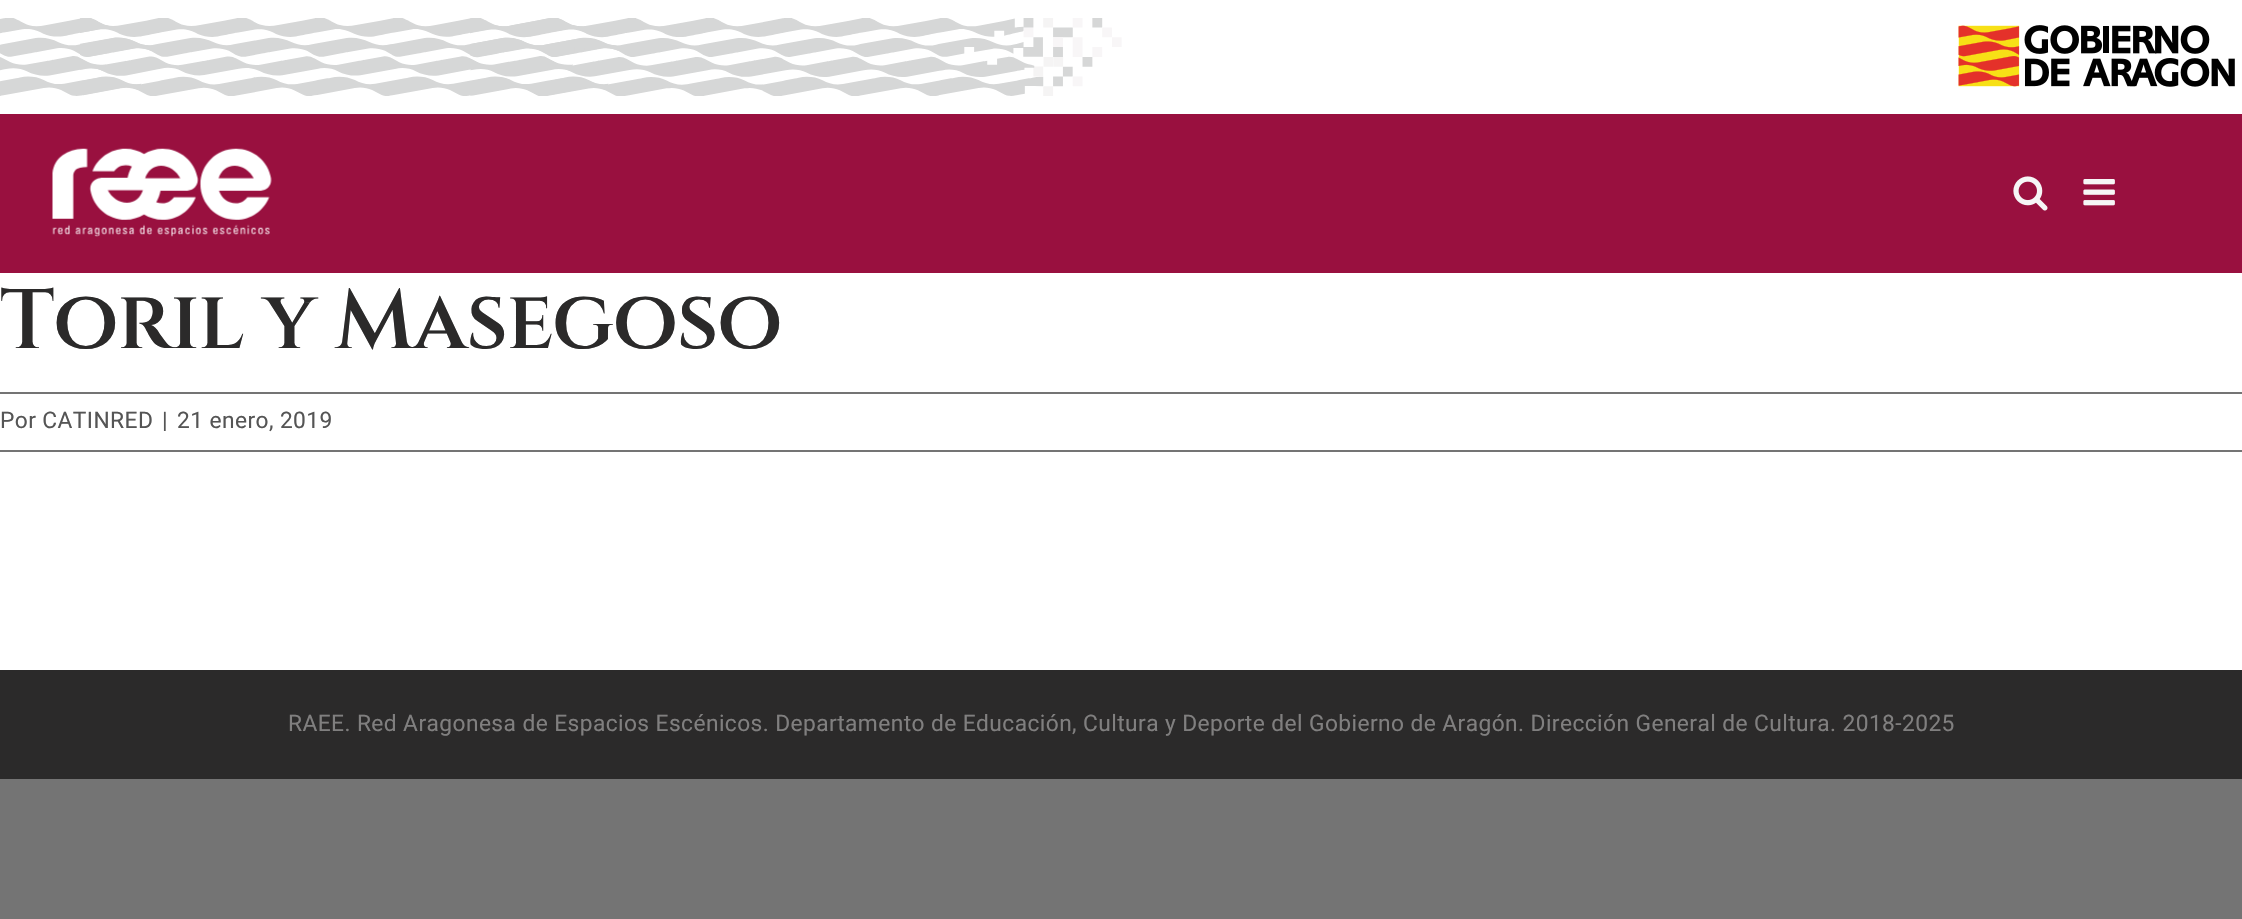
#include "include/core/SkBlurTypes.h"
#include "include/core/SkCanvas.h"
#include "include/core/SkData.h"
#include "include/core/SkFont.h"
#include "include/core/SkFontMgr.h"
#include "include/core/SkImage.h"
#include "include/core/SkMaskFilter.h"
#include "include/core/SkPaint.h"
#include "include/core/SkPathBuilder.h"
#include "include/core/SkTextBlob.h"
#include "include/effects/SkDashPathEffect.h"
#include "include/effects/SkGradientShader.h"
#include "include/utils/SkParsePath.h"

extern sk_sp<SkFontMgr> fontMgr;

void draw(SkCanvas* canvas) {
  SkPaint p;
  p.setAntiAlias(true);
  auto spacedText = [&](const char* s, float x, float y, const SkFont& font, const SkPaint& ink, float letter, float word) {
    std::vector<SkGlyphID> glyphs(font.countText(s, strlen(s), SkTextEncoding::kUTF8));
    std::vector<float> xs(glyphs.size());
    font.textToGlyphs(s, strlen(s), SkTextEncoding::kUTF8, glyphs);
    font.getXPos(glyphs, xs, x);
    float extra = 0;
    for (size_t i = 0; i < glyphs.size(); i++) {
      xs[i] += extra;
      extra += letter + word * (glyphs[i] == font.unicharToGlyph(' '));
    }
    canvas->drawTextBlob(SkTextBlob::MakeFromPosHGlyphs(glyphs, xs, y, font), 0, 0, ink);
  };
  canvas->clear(SkColorSetRGB(116, 116, 116));
  p.setColor(SK_ColorWHITE);
  canvas->drawRect(SkRect::MakeLTRB(0, 0, 2242, 670), p);
  canvas->drawImageRect(SkImages::DeferredFromEncodedData(SkData::MakeFromFileName("images/1.png")), SkRect::MakeLTRB(0, 18, 1122, 96), SkSamplingOptions());
  canvas->drawImageRect(SkImages::DeferredFromEncodedData(SkData::MakeFromFileName("images/2.png")), SkRect::MakeLTRB(1958, 25, 2235, 87), SkSamplingOptions());
  p.setColor(SkColorSetRGB(153, 16, 63));
  canvas->drawRect(SkRect::MakeLTRB(0, 114, 2242, 273), p);
  canvas->drawImageRect(SkImages::DeferredFromEncodedData(SkData::MakeFromFileName("images/3.png")), SkRect::MakeLTRB(52, 148, 272, 237), SkSamplingOptions());
  canvas->drawImageRect(SkImages::DeferredFromEncodedData(SkData::MakeFromFileName("images/4.png")), SkRect::MakeLTRB(2013, 176, 2048, 211), SkSamplingOptions());
  canvas->drawImageRect(SkImages::DeferredFromEncodedData(SkData::MakeFromFileName("images/5.png")), SkRect::MakeLTRB(2083, 179, 2115, 206), SkSamplingOptions());
  p.setColor(SkColorSetRGB(116, 116, 116));
  canvas->drawRect(SkRect::MakeLTRB(0, 392, 2242, 394), p);
  canvas->drawRect(SkRect::MakeLTRB(0, 450, 2242, 452), p);
  p.setColor(SkColorSetRGB(43, 42, 42));
  canvas->drawRect(SkRect::MakeLTRB(0, 670, 2242, 779), p);
  SkFont font1(fontMgr->matchFamilyStyle("Cinzel", SkFontStyle(600, SkFontStyle::kNormal_Width, SkFontStyle::kUpright_Slant)), 84);
  font1.setSubpixel(true);
  spacedText("Toril y Masegoso", 0, 348, font1, p, -1.25f, 0);
  SkFont font2(fontMgr->matchFamilyStyle("Roboto", SkFontStyle::Normal()), 22.75f);
  font2.setSubpixel(true);
  p.setColor(SkColorSetRGB(85, 85, 85));
  spacedText("Por CATINRED", 0, 428, font2, p, 0.42f, 0);
  spacedText("|", 162, 428, font2, p, 0.42f, 0);
  spacedText("21 enero, 2019", 177, 428, font2, p, 0.42f, 0);
  p.setColor(SkColorSetRGB(128, 127, 127));
  spacedText("RAEE. Red Aragonesa de Espacios Escénicos. Departamento de Educación, Cultura y Deporte del Gobierno de Aragón. Dirección General de Cultura. 2018-2025", 288, 731, font2, p, 0.42f, 0);
}
